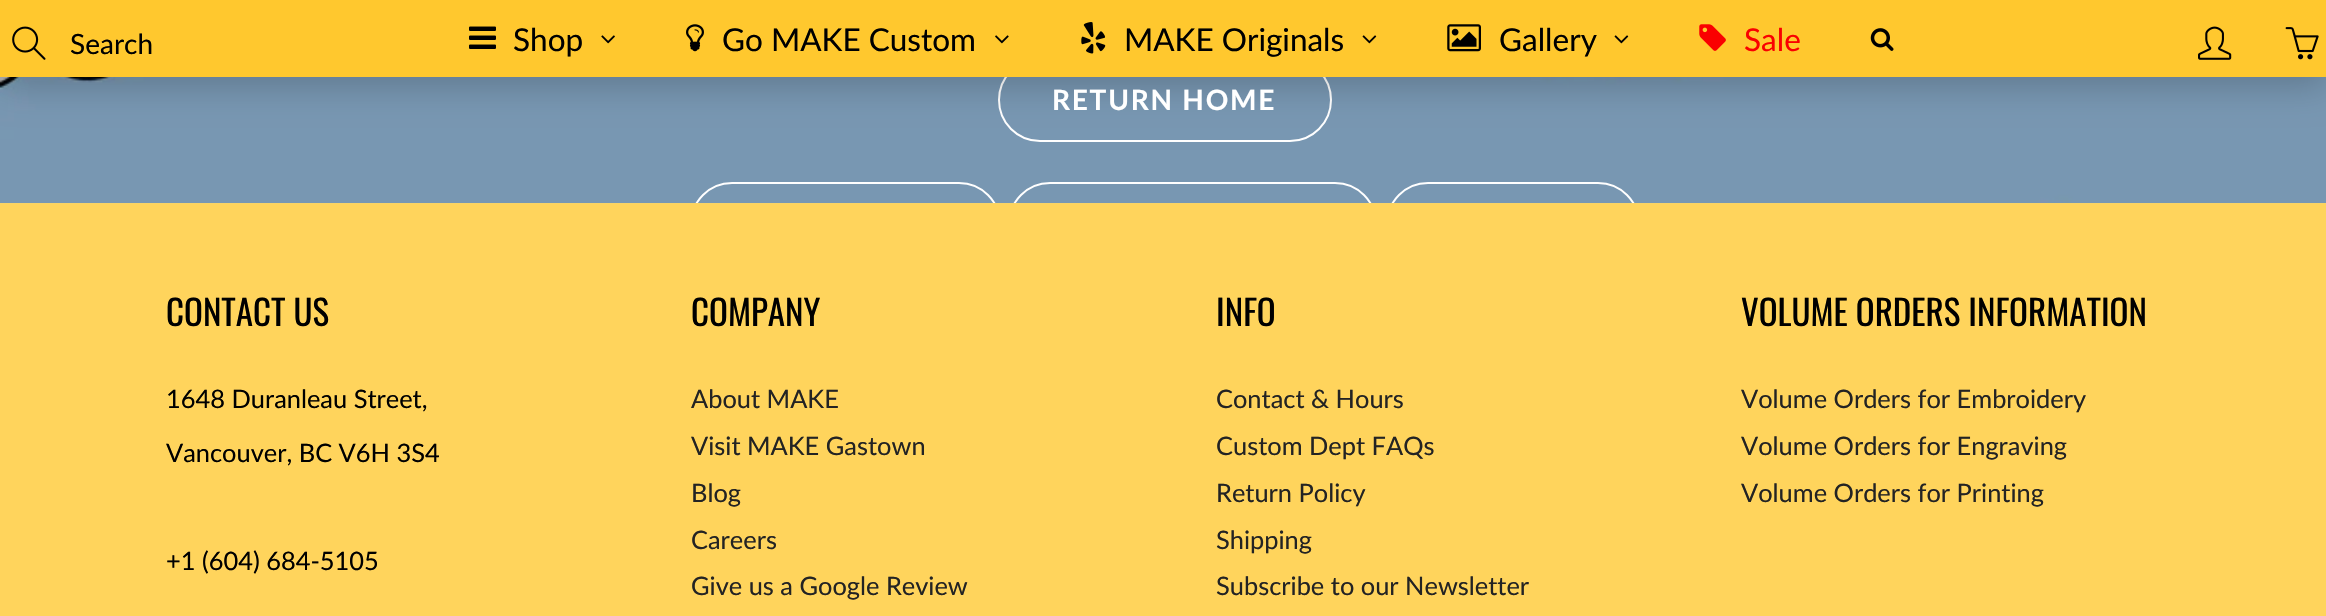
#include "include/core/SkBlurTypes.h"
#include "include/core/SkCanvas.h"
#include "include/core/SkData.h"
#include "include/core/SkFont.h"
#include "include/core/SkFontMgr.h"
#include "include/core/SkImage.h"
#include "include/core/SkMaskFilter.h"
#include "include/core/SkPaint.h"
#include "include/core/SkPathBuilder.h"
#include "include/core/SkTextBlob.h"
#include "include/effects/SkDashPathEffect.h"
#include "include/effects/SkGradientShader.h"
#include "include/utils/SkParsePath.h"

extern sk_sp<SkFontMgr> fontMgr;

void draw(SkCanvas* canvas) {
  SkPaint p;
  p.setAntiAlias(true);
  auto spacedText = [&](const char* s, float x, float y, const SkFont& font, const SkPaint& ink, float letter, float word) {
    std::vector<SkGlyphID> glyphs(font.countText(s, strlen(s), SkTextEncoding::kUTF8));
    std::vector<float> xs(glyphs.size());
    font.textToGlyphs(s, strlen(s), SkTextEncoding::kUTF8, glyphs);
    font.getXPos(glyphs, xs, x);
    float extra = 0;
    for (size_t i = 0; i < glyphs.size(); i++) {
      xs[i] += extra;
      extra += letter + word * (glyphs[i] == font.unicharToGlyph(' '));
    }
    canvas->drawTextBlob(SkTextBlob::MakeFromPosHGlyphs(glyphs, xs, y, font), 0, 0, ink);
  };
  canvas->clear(SkColorSetRGB(255, 212, 92));
  canvas->drawImageRect(SkImages::DeferredFromEncodedData(SkData::MakeFromFileName("images/13.png")), SkRect::MakeLTRB(0, 77, 2326, 204), SkSamplingOptions());
  p.setStyle(SkPaint::kStroke_Style);
  p.setStrokeWidth(2);
  p.setColor(SK_ColorWHITE);
  canvas->drawRoundRect(SkRect::MakeLTRB(999, 59, 1331, 141), 41, 41, p);
  p.setStyle(SkPaint::kFill_Style);
  p.setColor(SkColorSetARGB(51, 0, 0, 0));
  p.setMaskFilter(SkMaskFilter::MakeBlur(kNormal_SkBlurStyle, 17.5f));
  canvas->drawRect(SkRect::MakeLTRB(0, 9, 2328, 86), p);
  p.setMaskFilter(nullptr);
  p.setColor(SkColorSetRGB(255, 200, 46));
  canvas->drawRect(SkRect::MakeLTRB(0, 0, 2326, 77), p);
  canvas->drawImageRect(SkImages::DeferredFromEncodedData(SkData::MakeFromFileName("images/1.png")), SkRect::MakeLTRB(12, 26, 46, 60), SkSamplingOptions());
  canvas->drawImageRect(SkImages::DeferredFromEncodedData(SkData::MakeFromFileName("images/2.png")), SkRect::MakeLTRB(469, 26, 496, 49), SkSamplingOptions());
  canvas->drawImageRect(SkImages::DeferredFromEncodedData(SkData::MakeFromFileName("images/3.png")), SkRect::MakeLTRB(601, 35, 615, 44), SkSamplingOptions());
  canvas->drawImageRect(SkImages::DeferredFromEncodedData(SkData::MakeFromFileName("images/4.png")), SkRect::MakeLTRB(686, 24, 704, 52), SkSamplingOptions());
  canvas->drawImageRect(SkImages::DeferredFromEncodedData(SkData::MakeFromFileName("images/5.png")), SkRect::MakeLTRB(995, 35, 1009, 44), SkSamplingOptions());
  canvas->drawImageRect(SkImages::DeferredFromEncodedData(SkData::MakeFromFileName("images/6.png")), SkRect::MakeLTRB(1081, 22, 1106, 54), SkSamplingOptions());
  canvas->drawImageRect(SkImages::DeferredFromEncodedData(SkData::MakeFromFileName("images/7.png")), SkRect::MakeLTRB(1362, 35, 1377, 44), SkSamplingOptions());
  canvas->drawImageRect(SkImages::DeferredFromEncodedData(SkData::MakeFromFileName("images/8.png")), SkRect::MakeLTRB(1447, 24, 1481, 52), SkSamplingOptions());
  canvas->drawImageRect(SkImages::DeferredFromEncodedData(SkData::MakeFromFileName("images/7.png")), SkRect::MakeLTRB(1614, 35, 1629, 44), SkSamplingOptions());
  canvas->drawImageRect(SkImages::DeferredFromEncodedData(SkData::MakeFromFileName("images/9.png")), SkRect::MakeLTRB(1699, 24, 1726, 51), SkSamplingOptions());
  canvas->drawImageRect(SkImages::DeferredFromEncodedData(SkData::MakeFromFileName("images/10.png")), SkRect::MakeLTRB(1870, 28, 1894, 51), SkSamplingOptions());
  canvas->drawImageRect(SkImages::DeferredFromEncodedData(SkData::MakeFromFileName("images/11.png")), SkRect::MakeLTRB(2198, 26, 2232, 60), SkSamplingOptions());
  canvas->drawImageRect(SkImages::DeferredFromEncodedData(SkData::MakeFromFileName("images/12.png")), SkRect::MakeLTRB(2285, 27, 2319, 60), SkSamplingOptions());
  canvas->save();
  canvas->clipRect(SkRect::MakeLTRB(0, 0, 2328, 203));
  p.setStyle(SkPaint::kStroke_Style);
  p.setColor(SK_ColorWHITE);
  canvas->drawRoundRect(SkRect::MakeLTRB(691, 183, 1000, 265), 41, 41, p);
  canvas->drawRoundRect(SkRect::MakeLTRB(1009, 183, 1376, 265), 41, 41, p);
  canvas->drawRoundRect(SkRect::MakeLTRB(1387, 183, 1639, 265), 41, 41, p);
  canvas->restore();
  SkFont font1(fontMgr->matchFamilyStyle("Lato", SkFontStyle::Normal()), 28);
  font1.setSubpixel(true);
  p.setStyle(SkPaint::kFill_Style);
  p.setColor(SK_ColorBLACK);
  canvas->drawString("Search", 70, 54, font1, p);
  SkFont font2(fontMgr->matchFamilyStyle("Lato", SkFontStyle::Normal()), 31.5f);
  font2.setSubpixel(true);
  canvas->drawString("Shop", 513, 51, font2, p);
  canvas->drawString("Go MAKE Custom", 722, 51, font2, p);
  canvas->drawString("MAKE Originals", 1124, 51, font2, p);
  canvas->drawString("Gallery", 1499, 51, font2, p);
  p.setColor(SkColorSetRGB(250, 0, 0));
  canvas->drawString("Sale", 1744, 51, font2, p);
  SkFont font3(fontMgr->matchFamilyStyle("Lato", SkFontStyle::Bold()), 28);
  font3.setSubpixel(true);
  p.setColor(SK_ColorWHITE);
  spacedText("RETURN HOME", 1052, 110, font3, p, 1.75f, 0);
  SkFont font4(fontMgr->matchFamilyStyle("Oswald", SkFontStyle::Normal()), 35);
  font4.setSubpixel(true);
  p.setColor(SK_ColorBLACK);
  canvas->drawString("CONTACT US", 166, 326, font4, p);
  SkFont font5(fontMgr->matchFamilyStyle("Lato", SkFontStyle::Normal()), 25.4f);
  font5.setSubpixel(true);
  canvas->drawString("1648 Duranleau Street,", 166, 408, font5, p);
  canvas->drawString("Vancouver, BC V6H 3S4", 166, 462, font5, p);
  canvas->drawString("+1 (604) 684-5105", 166, 570, font5, p);
  canvas->drawString("COMPANY", 691, 326, font4, p);
  p.setColor(SkColorSetRGB(35, 35, 35));
  canvas->drawString("About MAKE", 691, 408, font5, p);
  canvas->drawString("Visit MAKE Gastown", 691, 455, font5, p);
  canvas->drawString("Blog", 691, 502, font5, p);
  canvas->drawString("Careers", 691, 549, font5, p);
  canvas->drawString("Give us a Google Review", 691, 595, font5, p);
  p.setColor(SK_ColorBLACK);
  canvas->drawString("INFO", 1216, 326, font4, p);
  p.setColor(SkColorSetRGB(35, 35, 35));
  canvas->drawString("Contact & Hours", 1216, 408, font5, p);
  canvas->drawString("Custom Dept FAQs", 1216, 455, font5, p);
  canvas->drawString("Return Policy", 1216, 502, font5, p);
  canvas->drawString("Shipping", 1216, 549, font5, p);
  canvas->drawString("Subscribe to our Newsletter", 1216, 595, font5, p);
  p.setColor(SK_ColorBLACK);
  canvas->drawString("VOLUME ORDERS INFORMATION", 1741, 326, font4, p);
  p.setColor(SkColorSetRGB(35, 35, 35));
  canvas->drawString("Volume Orders for Embroidery", 1741, 408, font5, p);
  canvas->drawString("Volume Orders for Engraving", 1741, 455, font5, p);
  canvas->drawString("Volume Orders for Printing", 1741, 502, font5, p);
}
